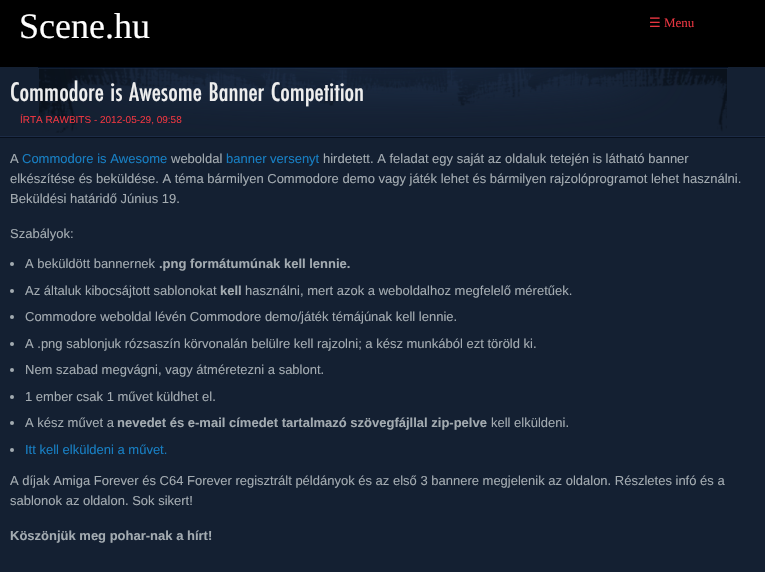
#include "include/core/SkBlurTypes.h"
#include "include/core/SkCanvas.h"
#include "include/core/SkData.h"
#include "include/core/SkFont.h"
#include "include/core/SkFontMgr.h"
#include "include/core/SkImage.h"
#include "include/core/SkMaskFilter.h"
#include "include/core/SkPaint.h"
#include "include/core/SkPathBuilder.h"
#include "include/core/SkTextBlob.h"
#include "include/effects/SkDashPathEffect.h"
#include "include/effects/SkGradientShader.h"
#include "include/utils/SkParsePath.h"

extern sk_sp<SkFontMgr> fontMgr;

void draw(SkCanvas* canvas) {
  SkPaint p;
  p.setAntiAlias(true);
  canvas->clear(SK_ColorBLACK);
  p.setColor(SkColorSetRGB(20, 32, 50));
  canvas->drawRect(SkRect::MakeLTRB(0, 67, 765, 572), p);
  canvas->drawImageRect(SkImages::DeferredFromEncodedData(SkData::MakeFromFileName("images/1.png")), SkRect::MakeLTRB(38, 67, 728, 133), SkSamplingOptions());
  canvas->drawImageRect(SkImages::DeferredFromEncodedData(SkData::MakeFromFileName("images/2.png")), SkRect::MakeLTRB(0, 136, 765, 138), SkSamplingOptions());
  p.setColor(SkColorSetRGB(163, 171, 177));
  canvas->drawCircle(12, 264, 2, p);
  canvas->drawCircle(12, 291, 2, p);
  canvas->drawCircle(12, 317, 2, p);
  canvas->drawCircle(12, 344, 2, p);
  canvas->drawCircle(12, 370, 2, p);
  canvas->drawCircle(12, 397, 2, p);
  canvas->drawCircle(12, 423, 2, p);
  canvas->drawCircle(12, 450, 2, p);
  SkFont font1(fontMgr->matchFamilyStyle("Liberation Serif", SkFontStyle::Normal()), 36);
  font1.setSubpixel(true);
  p.setColor(SK_ColorWHITE);
  canvas->drawString("Scene.hu", 19, 38, font1, p);
  SkFont font2(fontMgr->matchFamilyStyle("DejaVu Sans", SkFontStyle::Normal()), 13);
  font2.setSubpixel(true);
  p.setColor(SkColorSetRGB(231, 53, 64));
  canvas->drawString("☰", 649, 27, font2, p);
  SkFont font3(fontMgr->matchFamilyStyle("Liberation Serif", SkFontStyle::Normal()), 13);
  font3.setSubpixel(true);
  canvas->drawString("Menu", 664, 27, font3, p);
  SkFont font4(fontMgr->matchFamilyStyle("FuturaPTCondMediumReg", SkFontStyle(500, SkFontStyle::kNormal_Width, SkFontStyle::kUpright_Slant)), 28);
  font4.setSubpixel(true);
  p.setColor(SkColorSetRGB(238, 238, 238));
  canvas->drawString("Commodore is Awesome Banner Competition", 10, 101, font4, p);
  SkFont font5(fontMgr->matchFamilyStyle("Liberation Sans", SkFontStyle::Normal()), 10);
  font5.setSubpixel(true);
  p.setColor(SkColorSetRGB(231, 53, 64));
  canvas->drawString("ÍRTA RAWBITS - 2012-05-29, 09:58", 20, 123, font5, p);
  SkFont font6(fontMgr->matchFamilyStyle("Liberation Sans", SkFontStyle::Normal()), 13);
  font6.setSubpixel(true);
  p.setColor(SkColorSetRGB(163, 171, 177));
  canvas->drawString("A", 10, 163, font6, p);
  p.setColor(SkColorSetRGB(23, 126, 194));
  canvas->drawString("Commodore is Awesome", 22, 163, font6, p);
  p.setColor(SkColorSetRGB(163, 171, 177));
  canvas->drawString("weboldal", 171, 163, font6, p);
  p.setColor(SkColorSetRGB(23, 126, 194));
  canvas->drawString("banner versenyt", 226, 163, font6, p);
  p.setColor(SkColorSetRGB(163, 171, 177));
  canvas->drawString("hirdetett. A feladat egy saját az oldaluk tetején is látható banner", 323, 163, font6, p);
  canvas->drawString("elkészítése és beküldése. A téma bármilyen Commodore demo vagy játék lehet és bármilyen rajzolóprogramot lehet használni.", 10, 183, font6, p);
  canvas->drawString("Beküldési határidő Június 19.", 10, 203, font6, p);
  canvas->drawString("Szabályok:", 10, 238, font6, p);
  canvas->drawString("A beküldött bannernek", 25, 268, font6, p);
  SkFont font7(fontMgr->matchFamilyStyle("Liberation Sans", SkFontStyle::Bold()), 13);
  font7.setSubpixel(true);
  canvas->drawString(".png formátumúnak kell lennie.", 159, 268, font7, p);
  canvas->drawString("Az általuk kibocsájtott sablonokat", 25, 295, font6, p);
  canvas->drawString("kell", 220, 295, font7, p);
  canvas->drawString("használni, mert azok a weboldalhoz megfelelő méretűek.", 245, 295, font6, p);
  canvas->drawString("Commodore weboldal lévén Commodore demo/játék témájúnak kell lennie.", 25, 321, font6, p);
  canvas->drawString("A .png sablonjuk rózsaszín körvonalán belülre kell rajzolni; a kész munkából ezt töröld ki.", 25, 348, font6, p);
  canvas->drawString("Nem szabad megvágni, vagy átméretezni a sablont.", 25, 374, font6, p);
  canvas->drawString("1 ember csak 1 művet küldhet el.", 25, 401, font6, p);
  canvas->drawString("A kész művet a", 25, 427, font6, p);
  canvas->drawString("nevedet és e-mail címedet tartalmazó szövegfájllal zip-pelve", 117, 427, font7, p);
  canvas->drawString("kell elküldeni.", 491, 427, font6, p);
  p.setColor(SkColorSetRGB(23, 126, 194));
  canvas->drawString("Itt kell elküldeni a művet.", 25, 454, font6, p);
  p.setColor(SkColorSetRGB(163, 171, 177));
  canvas->drawString("A díjak Amiga Forever és C64 Forever regisztrált példányok és az első 3 bannere megjelenik az oldalon. Részletes infó és a", 10, 485, font6, p);
  canvas->drawString("sablonok az oldalon. Sok sikert!", 10, 505, font6, p);
  canvas->drawString("Köszönjük meg pohar-nak a hírt!", 10, 540, font7, p);
}
